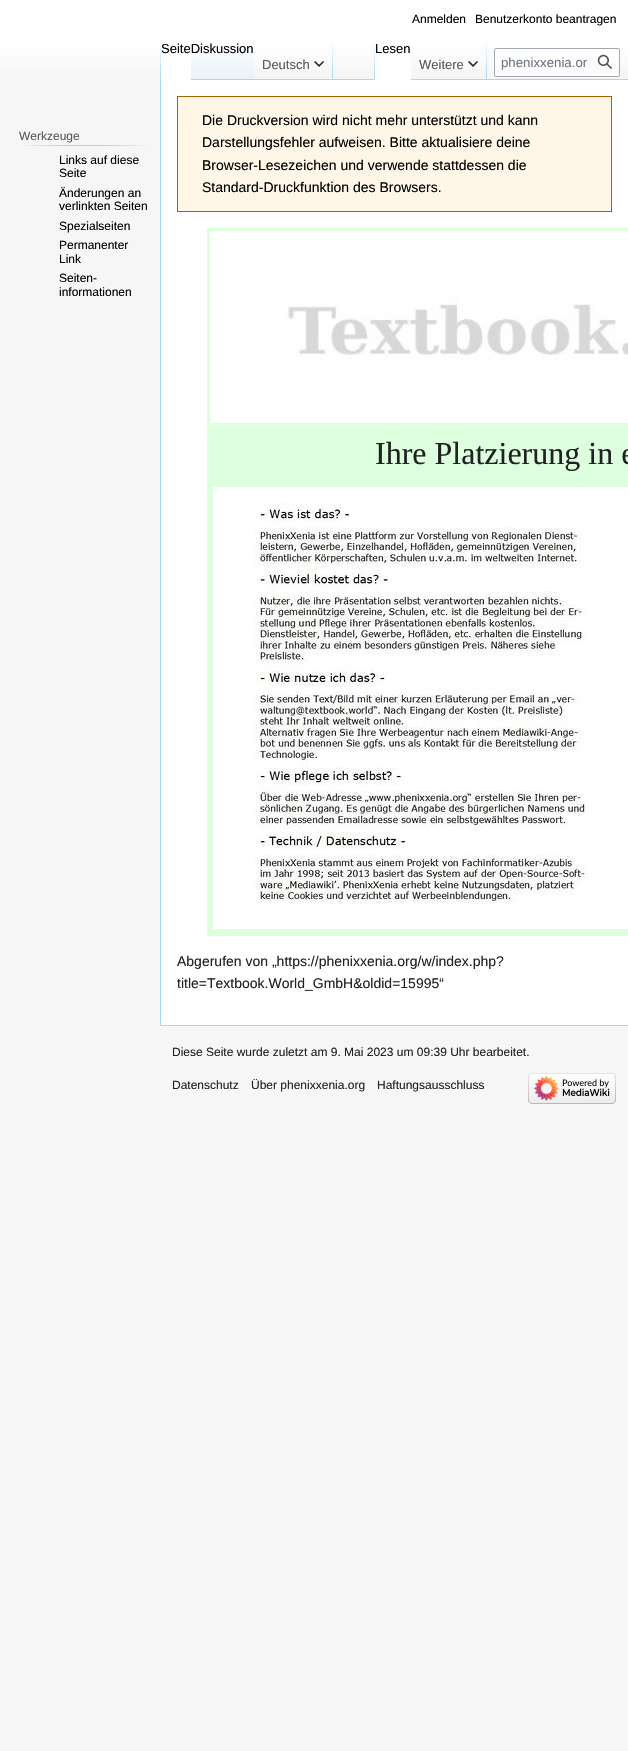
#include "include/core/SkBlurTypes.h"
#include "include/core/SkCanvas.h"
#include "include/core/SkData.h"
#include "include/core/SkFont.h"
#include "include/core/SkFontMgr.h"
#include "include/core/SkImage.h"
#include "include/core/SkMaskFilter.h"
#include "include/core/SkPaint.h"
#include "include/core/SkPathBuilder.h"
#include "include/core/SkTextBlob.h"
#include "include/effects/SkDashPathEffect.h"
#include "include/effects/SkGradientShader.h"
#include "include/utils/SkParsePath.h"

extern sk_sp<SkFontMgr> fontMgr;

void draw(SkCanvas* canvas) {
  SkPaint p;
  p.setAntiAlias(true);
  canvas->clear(SkColorSetRGB(246, 246, 246));
  {
    const SkColor colors[] = {SK_ColorWHITE, SkColorSetRGB(246, 246, 246)};
    const float stops[] = {0.5f, 1};
    const SkPoint ends[] = {{314, 0}, {314, 80}};
    p.setShader(SkGradientShader::MakeLinear(ends, colors, stops, 2, SkTileMode::kClamp));
    p.setAlpha(255);
  }
  canvas->drawRect(SkRect::MakeLTRB(0, 0, 628, 69), p);
  p.setShader(nullptr);
  p.setColor(SkColorSetRGB(167, 215, 249));
  canvas->drawRect(SkRect::MakeLTRB(160, 1025, 628, 1026), p);
  canvas->drawRect(SkRect::MakeLTRB(160, 79, 161, 1026), p);
  {
    const SkColor colors[] = {SkColorSetARGB(0, 167, 215, 249), SkColorSetRGB(167, 215, 249)};
    const float stops[] = {0, 1};
    const SkPoint ends[] = {{161, 40}, {161, 80}};
    p.setShader(SkGradientShader::MakeLinear(ends, colors, stops, 2, SkTileMode::kClamp));
    p.setAlpha(255);
  }
  canvas->drawRect(SkRect::MakeLTRB(160, 40, 161, 80), p);
  p.setShader(nullptr);
  p.setColor(SK_ColorWHITE);
  canvas->drawRect(SkRect::MakeLTRB(161, 51, 191, 80), p);
  {
    const SkColor colors[] = {SkColorSetRGB(119, 193, 246), SkColorSetRGB(232, 242, 248), SK_ColorWHITE};
    const float stops[] = {0, 0.03f, 1};
    const SkPoint ends[] = {{223, 80}, {223, 40}};
    p.setShader(SkGradientShader::MakeLinear(ends, colors, stops, 3, SkTileMode::kClamp));
    p.setAlpha(255);
  }
  canvas->drawRect(SkRect::MakeLTRB(191, 46, 254, 80), p);
  p.setShader(nullptr);
  p.setColor(SkColorSetRGB(167, 215, 249));
  canvas->drawRect(SkRect::MakeLTRB(254, 79, 628, 80), p);
  {
    const SkColor colors[] = {SkColorSetARGB(0, 167, 215, 249), SkColorSetRGB(167, 215, 249)};
    const float stops[] = {0, 1};
    const SkPoint ends[] = {{333, 40}, {333, 80}};
    p.setShader(SkGradientShader::MakeLinear(ends, colors, stops, 2, SkTileMode::kClamp));
    p.setAlpha(255);
  }
  canvas->drawRect(SkRect::MakeLTRB(332, 40, 333, 80), p);
  canvas->drawImageRect(SkImages::DeferredFromEncodedData(SkData::MakeFromFileName("images/1.png")), SkRect::MakeLTRB(314, 61, 324, 67), SkSamplingOptions());
  {
    const SkColor colors[] = {SkColorSetARGB(0, 167, 215, 249), SkColorSetRGB(167, 215, 249)};
    const float stops[] = {0, 1};
    const SkPoint ends[] = {{375, 40}, {375, 80}};
    p.setShader(SkGradientShader::MakeLinear(ends, colors, stops, 2, SkTileMode::kClamp));
    p.setAlpha(255);
  }
  canvas->drawRect(SkRect::MakeLTRB(374, 40, 375, 80), p);
  p.setShader(nullptr);
  p.setColor(SK_ColorWHITE);
  canvas->drawRect(SkRect::MakeLTRB(375, 51, 411, 80), p);
  {
    const SkColor colors[] = {SkColorSetARGB(0, 167, 215, 249), SkColorSetRGB(167, 215, 249)};
    const float stops[] = {0, 1};
    const SkPoint ends[] = {{487, 40}, {487, 80}};
    p.setShader(SkGradientShader::MakeLinear(ends, colors, stops, 2, SkTileMode::kClamp));
    p.setAlpha(255);
  }
  canvas->drawRect(SkRect::MakeLTRB(486, 40, 487, 80), p);
  canvas->drawImageRect(SkImages::DeferredFromEncodedData(SkData::MakeFromFileName("images/1.png")), SkRect::MakeLTRB(468, 61, 478, 67), SkSamplingOptions());
  p.setShader(nullptr);
  p.setColor(SkColorSetARGB(128, 255, 255, 255));
  canvas->drawRoundRect(SkRect::MakeLTRB(494.5f, 48.5f, 619.5f, 76.5f), 1.5f, 1.5f, p);
  p.setStyle(SkPaint::kStroke_Style);
  p.setStrokeWidth(1);
  p.setColor(SkColorSetRGB(162, 169, 177));
  canvas->drawRoundRect(SkRect::MakeLTRB(494.5f, 48.5f, 619.5f, 76.5f), 1.5f, 1.5f, p);
  canvas->drawImageRect(SkImages::DeferredFromEncodedData(SkData::MakeFromFileName("images/2.png")), SkRect::MakeLTRB(597, 54, 612, 69), SkSamplingOptions());
  p.setStyle(SkPaint::kFill_Style);
  {
    const SkColor colors[] = {SkColorSetRGB(246, 246, 246), SkColorSetRGB(200, 204, 209), SkColorSetRGB(200, 204, 209), SkColorSetRGB(246, 246, 246)};
    const float stops[] = {0, 0.33f, 0.66f, 1};
    const SkPoint ends[] = {{19, 146}, {150, 146}};
    p.setShader(SkGradientShader::MakeLinear(ends, colors, stops, 4, SkTileMode::kClamp));
    p.setAlpha(255);
  }
  canvas->drawRect(SkRect::MakeLTRB(19, 145, 150, 146), p);
  p.setShader(nullptr);
  p.setColor(SK_ColorWHITE);
  canvas->drawRect(SkRect::MakeLTRB(161, 80, 628, 1025), p);
  p.setColor(SkColorSetRGB(254, 246, 231));
  canvas->drawRect(SkRect::MakeLTRB(177.5f, 96.5f, 611.5f, 211.5f), p);
  p.setStyle(SkPaint::kStroke_Style);
  p.setColor(SkColorSetRGB(166, 98, 0));
  canvas->drawRect(SkRect::MakeLTRB(177.5f, 96.5f, 611.5f, 211.5f), p);
  p.setStyle(SkPaint::kFill_Style);
  p.setColor(SkColorSetRGB(221, 255, 221));
  canvas->drawRect(SkRect::MakeLTRB(207, 228, 628, 936), p);
  canvas->drawImageRect(SkImages::DeferredFromEncodedData(SkData::MakeFromFileName("images/3.png")), SkRect::MakeLTRB(210, 231, 628, 423), SkSamplingOptions());
  canvas->drawImageRect(SkImages::DeferredFromEncodedData(SkData::MakeFromFileName("images/4.png")), SkRect::MakeLTRB(213, 487, 628, 929), SkSamplingOptions());
  canvas->drawImageRect(SkImages::DeferredFromEncodedData(SkData::MakeFromFileName("images/5.png")), SkRect::MakeLTRB(528, 1073, 616, 1104), SkSamplingOptions());
  SkFont font1(fontMgr->matchFamilyStyle("Liberation Sans", SkFontStyle::Normal()), 12);
  font1.setSubpixel(true);
  p.setColor(SK_ColorBLACK);
  canvas->drawString("Anmelden", 412, 23, font1, p);
  canvas->drawString("Benutzerkonto beantragen", 475, 23, font1, p);
  SkFont font2(fontMgr->matchFamilyStyle("Liberation Sans", SkFontStyle::Normal()), 13);
  font2.setSubpixel(true);
  canvas->drawString("SeiteDiskussion", 161, 53, font2, p);
  p.setColor(SkColorSetRGB(84, 89, 93));
  canvas->drawString("Deutsch", 262, 69, font2, p);
  p.setColor(SK_ColorBLACK);
  canvas->drawString("Lesen", 375, 53, font2, p);
  p.setColor(SkColorSetRGB(84, 89, 93));
  canvas->drawString("Weitere", 419, 69, font2, p);
  SkFont font3(fontMgr->matchFamilyStyle("Liberation Sans", SkFontStyle::Normal()), 13.25f);
  font3.setSubpixel(true);
  p.setColor(SkColorSetRGB(114, 119, 125));
  canvas->drawString("phenixxenia.or", 501, 67, font3, p);
  p.setColor(SkColorSetRGB(84, 89, 93));
  canvas->drawString("Werkzeuge", 19, 140, font1, p);
  p.setColor(SK_ColorBLACK);
  canvas->drawString("Links auf diese", 59, 164, font1, p);
  canvas->drawString("Seite", 59, 177, font1, p);
  canvas->drawString("Änderungen an", 59, 197, font1, p);
  canvas->drawString("verlinkten Seiten", 59, 210, font1, p);
  canvas->drawString("Spezialseiten", 59, 230, font1, p);
  canvas->drawString("Permanenter", 59, 249, font1, p);
  canvas->drawString("Link", 59, 263, font1, p);
  canvas->drawString("Seiten-", 59, 282, font1, p);
  canvas->drawString("informationen", 59, 296, font1, p);
  SkFont font4(fontMgr->matchFamilyStyle("Liberation Sans", SkFontStyle::Normal()), 14);
  font4.setSubpixel(true);
  canvas->drawString("Die Druckversion wird nicht mehr unterstützt und kann", 202, 125, font4, p);
  canvas->drawString("Darstellungsfehler aufweisen. Bitte aktualisiere deine", 202, 147, font4, p);
  canvas->drawString("Browser-Lesezeichen und verwende stattdessen die", 202, 170, font4, p);
  canvas->drawString("Standard-Druckfunktion des Browsers.", 202, 192, font4, p);
  SkFont font5(fontMgr->matchFamilyStyle("Liberation Serif", SkFontStyle::Normal()), 32);
  font5.setSubpixel(true);
  p.setColor(SkColorSetRGB(32, 33, 34));
  canvas->drawString("Ihre Platzierung in e", 375, 464, font5, p);
  canvas->drawString("Abgerufen von „https://phenixxenia.org/w/index.php?", 177, 966, font4, p);
  canvas->drawString("title=Textbook.World_GmbH&oldid=15995“", 177, 988, font4, p);
  canvas->drawString("Diese Seite wurde zuletzt am 9. Mai 2023 um 09:39 Uhr bearbeitet.", 172, 1056, font1, p);
  canvas->drawString("Datenschutz", 172, 1089, font1, p);
  canvas->drawString("Über phenixxenia.org", 251, 1089, font1, p);
  canvas->drawString("Haftungsausschluss", 377, 1089, font1, p);
}
